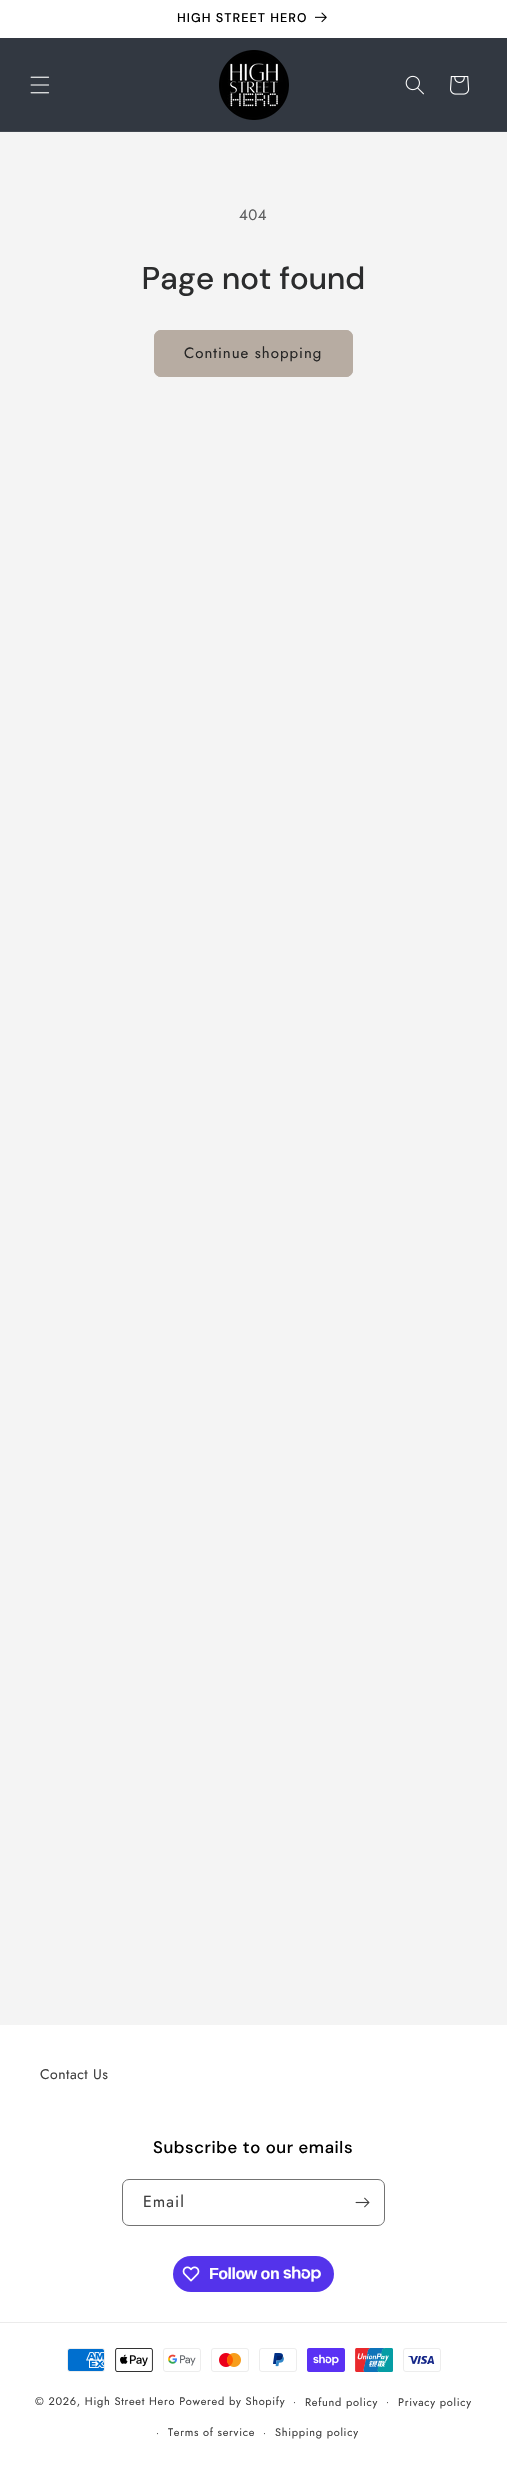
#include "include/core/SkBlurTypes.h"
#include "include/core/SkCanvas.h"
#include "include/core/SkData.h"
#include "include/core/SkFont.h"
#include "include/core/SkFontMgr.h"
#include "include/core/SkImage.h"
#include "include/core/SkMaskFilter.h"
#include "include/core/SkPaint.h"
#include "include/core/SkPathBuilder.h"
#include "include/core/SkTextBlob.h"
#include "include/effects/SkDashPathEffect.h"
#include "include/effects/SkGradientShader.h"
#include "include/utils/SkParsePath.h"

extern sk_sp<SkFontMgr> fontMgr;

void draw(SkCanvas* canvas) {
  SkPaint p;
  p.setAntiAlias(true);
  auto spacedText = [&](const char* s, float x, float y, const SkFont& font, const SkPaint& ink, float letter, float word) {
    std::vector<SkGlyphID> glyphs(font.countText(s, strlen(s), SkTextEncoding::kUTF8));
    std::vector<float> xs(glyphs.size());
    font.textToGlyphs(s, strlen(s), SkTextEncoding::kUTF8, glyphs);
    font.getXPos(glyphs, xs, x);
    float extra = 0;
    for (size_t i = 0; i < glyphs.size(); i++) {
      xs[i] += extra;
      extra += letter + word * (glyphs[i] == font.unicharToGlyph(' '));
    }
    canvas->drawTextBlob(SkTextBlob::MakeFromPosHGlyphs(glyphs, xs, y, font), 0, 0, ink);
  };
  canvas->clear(SkColorSetRGB(244, 244, 244));
  p.setColor(SK_ColorWHITE);
  canvas->drawRect(SkRect::MakeLTRB(0, 0, 507, 38), p);
  canvas->drawImageRect(SkImages::DeferredFromEncodedData(SkData::MakeFromFileName("images/1.png")), SkRect::MakeLTRB(315, 12, 327, 23), SkSamplingOptions());
  p.setColor(SkColorSetRGB(50, 56, 65));
  canvas->drawRect(SkRect::MakeLTRB(0, 38, 507, 131), p);
  p.setColor(SkColorSetRGB(66, 72, 80));
  canvas->drawRect(SkRect::MakeLTRB(0, 131, 507, 132), p);
  canvas->drawImageRect(SkImages::DeferredFromEncodedData(SkData::MakeFromFileName("images/2.png")), SkRect::MakeLTRB(30, 76, 50, 94), SkSamplingOptions());
  canvas->drawImageRect(SkImages::DeferredFromEncodedData(SkData::MakeFromFileName("images/3.png")), SkRect::MakeLTRB(219, 50, 289, 120), SkSamplingOptions());
  canvas->drawImageRect(SkImages::DeferredFromEncodedData(SkData::MakeFromFileName("images/4.png")), SkRect::MakeLTRB(405, 75, 424, 95), SkSamplingOptions());
  canvas->drawImageRect(SkImages::DeferredFromEncodedData(SkData::MakeFromFileName("images/5.png")), SkRect::MakeLTRB(450, 76, 470, 95), SkSamplingOptions());
  p.setColor(SkColorSetRGB(183, 172, 162));
  canvas->drawRoundRect(SkRect::MakeLTRB(154, 330, 353, 377), 7, 7, p);
  p.setStyle(SkPaint::kStroke_Style);
  p.setStrokeWidth(1);
  canvas->drawRoundRect(SkRect::MakeLTRB(154.5f, 330.5f, 352.5f, 376.5f), 6.5f, 6.5f, p);
  p.setStyle(SkPaint::kFill_Style);
  p.setColor(SK_ColorWHITE);
  canvas->drawRect(SkRect::MakeLTRB(0, 2025, 507, 2475), p);
  p.setStyle(SkPaint::kStroke_Style);
  p.setColor(SkColorSetRGB(115, 115, 115));
  canvas->drawRoundRect(SkRect::MakeLTRB(122.5f, 2179.5f, 384.5f, 2225.5f), 6.5f, 6.5f, p);
  canvas->drawImageRect(SkImages::DeferredFromEncodedData(SkData::MakeFromFileName("images/6.png")), SkRect::MakeLTRB(355, 2197, 370, 2208), SkSamplingOptions());
  p.setStyle(SkPaint::kFill_Style);
  p.setColor(SkColorSetRGB(84, 51, 235));
  canvas->drawRoundRect(SkRect::MakeLTRB(173, 2256, 334, 2292), 18, 18, p);
  canvas->drawImageRect(SkImages::DeferredFromEncodedData(SkData::MakeFromFileName("images/7.png")), SkRect::MakeLTRB(182, 2266, 200, 2282), SkSamplingOptions());
  canvas->drawImageRect(SkImages::DeferredFromEncodedData(SkData::MakeFromFileName("images/8.png")), SkRect::MakeLTRB(283, 2266, 321, 2282), SkSamplingOptions());
  p.setColor(SkColorSetRGB(235, 235, 235));
  canvas->drawRect(SkRect::MakeLTRB(0, 2322, 507, 2323), p);
  canvas->drawImageRect(SkImages::DeferredFromEncodedData(SkData::MakeFromFileName("images/9.png")), SkRect::MakeLTRB(67, 2348, 105, 2372), SkSamplingOptions());
  canvas->drawImageRect(SkImages::DeferredFromEncodedData(SkData::MakeFromFileName("images/10.png")), SkRect::MakeLTRB(115, 2348, 153, 2372), SkSamplingOptions());
  canvas->drawImageRect(SkImages::DeferredFromEncodedData(SkData::MakeFromFileName("images/11.png")), SkRect::MakeLTRB(163, 2348, 201, 2372), SkSamplingOptions());
  canvas->drawImageRect(SkImages::DeferredFromEncodedData(SkData::MakeFromFileName("images/12.png")), SkRect::MakeLTRB(211, 2348, 249, 2372), SkSamplingOptions());
  canvas->drawImageRect(SkImages::DeferredFromEncodedData(SkData::MakeFromFileName("images/13.png")), SkRect::MakeLTRB(259, 2348, 297, 2372), SkSamplingOptions());
  canvas->drawImageRect(SkImages::DeferredFromEncodedData(SkData::MakeFromFileName("images/14.png")), SkRect::MakeLTRB(307, 2348, 345, 2372), SkSamplingOptions());
  canvas->drawImageRect(SkImages::DeferredFromEncodedData(SkData::MakeFromFileName("images/15.png")), SkRect::MakeLTRB(355, 2348, 393, 2372), SkSamplingOptions());
  canvas->drawImageRect(SkImages::DeferredFromEncodedData(SkData::MakeFromFileName("images/16.png")), SkRect::MakeLTRB(403, 2348, 441, 2372), SkSamplingOptions());
  SkFont font1(fontMgr->matchFamilyStyle("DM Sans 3", SkFontStyle(500, SkFontStyle::kNormal_Width, SkFontStyle::kUpright_Slant)), 12.6f);
  font1.setSubpixel(true);
  p.setColor(SK_ColorBLACK);
  spacedText("HIGH STREET HERO", 177, 22, font1, p, 1, 0);
  SkFont font2(fontMgr->matchFamilyStyle("Jost", SkFontStyle::Normal()), 15);
  font2.setSubpixel(true);
  p.setColor(SkColorSetRGB(93, 94, 95));
  spacedText("404", 239, 220, font2, p, 0.5f, 0);
  SkFont font3(fontMgr->matchFamilyStyle("DM Sans", SkFontStyle(500, SkFontStyle::kNormal_Width, SkFontStyle::kUpright_Slant)), 31.5f);
  font3.setSubpixel(true);
  p.setColor(SkColorSetRGB(43, 44, 45));
  spacedText("Page not found", 142, 289, font3, p, 0.6f, 0);
  p.setColor(SkColorSetRGB(38, 38, 38));
  spacedText("Continue shopping", 184, 358, font2, p, 1, 0);
  SkFont font4(fontMgr->matchFamilyStyle("Jost", SkFontStyle::Normal()), 14);
  font4.setSubpixel(true);
  p.setColor(SkColorSetRGB(64, 64, 64));
  spacedText("Contact Us", 40, 2079, font4, p, 0.5f, 0);
  SkFont font5(fontMgr->matchFamilyStyle("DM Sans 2", SkFontStyle(500, SkFontStyle::kNormal_Width, SkFontStyle::kUpright_Slant)), 16.75f);
  font5.setSubpixel(true);
  p.setColor(SK_ColorBLACK);
  spacedText("Subscribe to our emails", 153, 2153, font5, p, 0.6f, 0);
  SkFont font6(fontMgr->matchFamilyStyle("Jost", SkFontStyle::Normal()), 16);
  font6.setSubpixel(true);
  p.setColor(SkColorSetRGB(64, 64, 64));
  spacedText("Email", 143, 2207, font6, p, 1, 0);
  SkFont font7(fontMgr->matchFamilyStyle("Liberation Sans", SkFontStyle::Bold()), 16);
  font7.setSubpixel(true);
  p.setColor(SK_ColorWHITE);
  spacedText("Follow on", 209, 2279, font7, p, -0.5f, 0);
  SkFont font8(fontMgr->matchFamilyStyle("Jost", SkFontStyle::Normal()), 11);
  font8.setSubpixel(true);
  p.setColor(SkColorSetRGB(64, 64, 64));
  spacedText("© 2026, High Street Hero Powered by Shopify", 35, 2405, font8, p, 0.7f, 0);
  SkFont font9(fontMgr->matchFamilyStyle("Jost", SkFontStyle::Normal()), 10);
  font9.setSubpixel(true);
  spacedText("·", 293, 2405, font9, p, 0.7f, 0);
  spacedText("Refund policy", 305, 2406, font8, p, 0.7f, 0);
  spacedText("·", 386, 2405, font9, p, 0.7f, 0);
  spacedText("Privacy policy", 398, 2406, font8, p, 0.7f, 0);
  spacedText("·", 156, 2436, font9, p, 0.7f, 0);
  spacedText("Terms of service", 168, 2436, font8, p, 0.7f, 0);
  spacedText("·", 263, 2436, font9, p, 0.7f, 0);
  spacedText("Shipping policy", 275, 2436, font8, p, 0.7f, 0);
}
